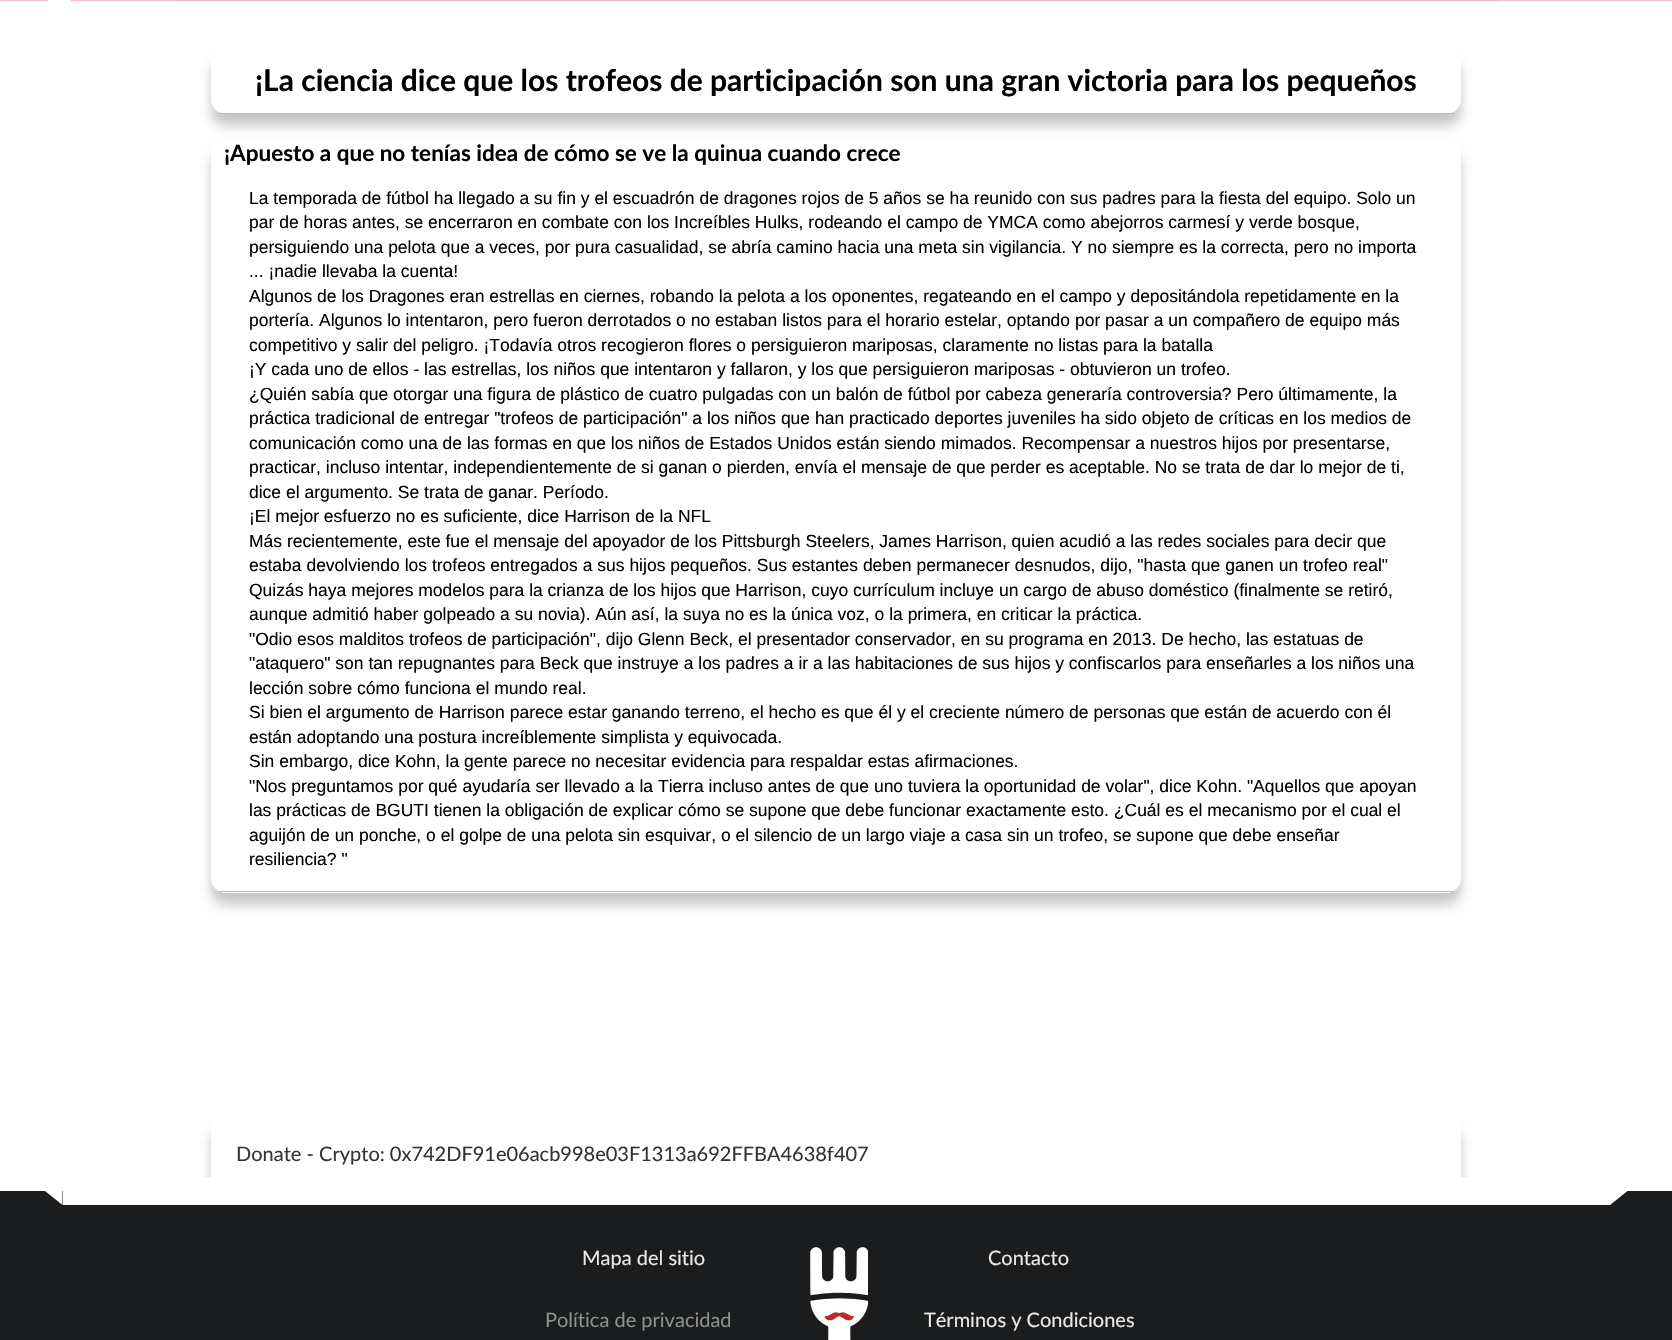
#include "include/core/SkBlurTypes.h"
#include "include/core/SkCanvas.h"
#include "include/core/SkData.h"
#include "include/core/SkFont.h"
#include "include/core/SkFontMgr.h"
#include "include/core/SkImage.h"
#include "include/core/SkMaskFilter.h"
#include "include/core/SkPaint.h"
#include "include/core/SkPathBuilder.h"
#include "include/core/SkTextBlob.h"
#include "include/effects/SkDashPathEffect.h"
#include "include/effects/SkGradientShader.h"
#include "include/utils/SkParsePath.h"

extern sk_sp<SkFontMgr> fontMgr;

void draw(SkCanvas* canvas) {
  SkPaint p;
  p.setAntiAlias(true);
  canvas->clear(SK_ColorWHITE);
  p.setColor(SkColorSetRGB(235, 235, 235));
  canvas->drawRect(SkRect::MakeLTRB(175, 0, 1498, 1), p);
  p.setColor(SkColorSetRGB(204, 36, 36));
  p.setMaskFilter(SkMaskFilter::MakeBlur(kNormal_SkBlurStyle, 1));
  canvas->drawRect(SkRect::MakeLTRB(0, -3, 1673, 0), p);
  p.setMaskFilter(nullptr);
  canvas->drawImageRect(SkImages::DeferredFromEncodedData(SkData::MakeFromFileName("images/1.png")), SkRect::MakeLTRB(48, 0, 71, 2), SkSamplingOptions());
  canvas->save();
  canvas->clipPath(SkPathBuilder(SkPathFillType::kEvenOdd).moveTo(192, 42).lineTo(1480, 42).lineTo(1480, 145).lineTo(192, 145).close().moveTo(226, 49).lineTo(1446, 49).cubicTo(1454.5f, 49, 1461, 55.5f, 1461, 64).lineTo(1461, 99).cubicTo(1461, 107.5f, 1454.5f, 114, 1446, 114).lineTo(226, 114).cubicTo(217.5f, 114, 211, 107.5f, 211, 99).lineTo(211, 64).cubicTo(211, 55.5f, 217.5f, 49, 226, 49).close().detach(), true);
  p.setColor(SkColorSetARGB(56, 0, 0, 0));
  p.setMaskFilter(SkMaskFilter::MakeBlur(kNormal_SkBlurStyle, 6));
  canvas->drawRoundRect(SkRect::MakeLTRB(211, 61, 1461, 126), 15, 15, p);
  p.setMaskFilter(nullptr);
  canvas->restore();
  p.setColor(SkColorSetRGB(197, 183, 183));
  canvas->drawRect(SkRect::MakeLTRB(219, 113, 1454, 114), p);
  canvas->save();
  canvas->clipPath(SkPathBuilder(SkPathFillType::kEvenOdd).moveTo(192, 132).lineTo(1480, 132).lineTo(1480, 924).lineTo(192, 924).close().moveTo(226, 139).lineTo(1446, 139).cubicTo(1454.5f, 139, 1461, 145.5f, 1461, 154).lineTo(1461, 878).cubicTo(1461, 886.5f, 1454.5f, 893, 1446, 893).lineTo(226, 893).cubicTo(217.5f, 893, 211, 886.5f, 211, 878).lineTo(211, 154).cubicTo(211, 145.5f, 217.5f, 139, 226, 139).close().detach(), true);
  p.setColor(SkColorSetARGB(56, 0, 0, 0));
  p.setMaskFilter(SkMaskFilter::MakeBlur(kNormal_SkBlurStyle, 6));
  canvas->drawRoundRect(SkRect::MakeLTRB(211, 151, 1461, 905), 15, 15, p);
  p.setMaskFilter(nullptr);
  canvas->restore();
  p.setColor(SkColorSetRGB(197, 183, 183));
  canvas->drawRect(SkRect::MakeLTRB(219, 891, 1454, 892), p);
  canvas->save();
  canvas->clipPath(SkPathBuilder(SkPathFillType::kEvenOdd).moveTo(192, 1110).lineTo(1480, 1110).lineTo(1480, 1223).lineTo(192, 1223).close().moveTo(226, 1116).lineTo(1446, 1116).cubicTo(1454.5f, 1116, 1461, 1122.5f, 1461, 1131).lineTo(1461, 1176).cubicTo(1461, 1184.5f, 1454.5f, 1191, 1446, 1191).lineTo(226, 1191).cubicTo(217.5f, 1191, 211, 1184.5f, 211, 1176).lineTo(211, 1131).cubicTo(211, 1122.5f, 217.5f, 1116, 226, 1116).close().detach(), true);
  p.setColor(SkColorSetARGB(56, 0, 0, 0));
  p.setMaskFilter(SkMaskFilter::MakeBlur(kNormal_SkBlurStyle, 6));
  canvas->drawRoundRect(SkRect::MakeLTRB(211, 1129, 1461, 1204), 15, 15, p);
  p.setMaskFilter(nullptr);
  canvas->restore();
  p.setColor(SkColorSetRGB(27, 28, 29));
  canvas->drawRect(SkRect::MakeLTRB(0, 1191, 1672, 1340), p);
  p.setColor(SK_ColorWHITE);
  canvas->drawPath(SkPathBuilder().moveTo(62.5f, 1177.5f).lineTo(62.5f, 1205).lineTo(45, 1191).close().detach(), p);
  canvas->drawRect(SkRect::MakeLTRB(63, 1178, 1610, 1205), p);
  canvas->drawPath(SkPathBuilder().moveTo(1610, 1205).lineTo(1610, 1177.5f).lineTo(1627.5f, 1191).close().detach(), p);
  canvas->drawImageRect(SkImages::DeferredFromEncodedData(SkData::MakeFromFileName("images/2.png")), SkRect::MakeLTRB(810, 1247, 868, 1340), SkSamplingOptions());
  SkFont font1(fontMgr->matchFamilyStyle("Lato", SkFontStyle::Bold()), 30);
  font1.setSubpixel(true);
  p.setColor(SK_ColorBLACK);
  canvas->drawString("¡La ciencia dice que los trofeos de participación son una gran victoria para los pequeños", 255, 91, font1, p);
  SkFont font2(fontMgr->matchFamilyStyle("Lato", SkFontStyle::Bold()), 22.5f);
  font2.setSubpixel(true);
  canvas->drawString("¡Apuesto a que no tenías idea de cómo se ve la quinua cuando crece", 224, 161, font2, p);
  SkFont font3(fontMgr->matchFamilyStyle("Liberation Sans", SkFontStyle::Normal()), 17.5f);
  font3.setSubpixel(true);
  canvas->drawString("La temporada de fútbol ha llegado a su fin y el escuadrón de dragones rojos de 5 años se ha reunido con sus padres para la fiesta del equipo. Solo un", 249, 204, font3, p);
  canvas->drawString("par de horas antes, se encerraron en combate con los Increíbles Hulks, rodeando el campo de YMCA como abejorros carmesí y verde bosque,", 249, 228, font3, p);
  canvas->drawString("persiguiendo una pelota que a veces, por pura casualidad, se abría camino hacia una meta sin vigilancia. Y no siempre es la correcta, pero no importa", 249, 253, font3, p);
  canvas->drawString("... ¡nadie llevaba la cuenta!", 249, 277, font3, p);
  canvas->drawString("Algunos de los Dragones eran estrellas en ciernes, robando la pelota a los oponentes, regateando en el campo y depositándola repetidamente en la", 249, 302, font3, p);
  canvas->drawString("portería. Algunos lo intentaron, pero fueron derrotados o no estaban listos para el horario estelar, optando por pasar a un compañero de equipo más", 249, 326, font3, p);
  canvas->drawString("competitivo y salir del peligro. ¡Todavía otros recogieron flores o persiguieron mariposas, claramente no listas para la batalla", 249, 351, font3, p);
  canvas->drawString("¡Y cada uno de ellos - las estrellas, los niños que intentaron y fallaron, y los que persiguieron mariposas - obtuvieron un trofeo.", 249, 375, font3, p);
  canvas->drawString("¿Quién sabía que otorgar una figura de plástico de cuatro pulgadas con un balón de fútbol por cabeza generaría controversia? Pero últimamente, la", 249, 400, font3, p);
  canvas->drawString("práctica tradicional de entregar \"trofeos de participación\" a los niños que han practicado deportes juveniles ha sido objeto de críticas en los medios de", 249, 424, font3, p);
  canvas->drawString("comunicación como una de las formas en que los niños de Estados Unidos están siendo mimados. Recompensar a nuestros hijos por presentarse,", 249, 449, font3, p);
  canvas->drawString("practicar, incluso intentar, independientemente de si ganan o pierden, envía el mensaje de que perder es aceptable. No se trata de dar lo mejor de ti,", 249, 473, font3, p);
  canvas->drawString("dice el argumento. Se trata de ganar. Período.", 249, 498, font3, p);
  canvas->drawString("¡El mejor esfuerzo no es suficiente, dice Harrison de la NFL", 249, 522, font3, p);
  canvas->drawString("Más recientemente, este fue el mensaje del apoyador de los Pittsburgh Steelers, James Harrison, quien acudió a las redes sociales para decir que", 249, 547, font3, p);
  canvas->drawString("estaba devolviendo los trofeos entregados a sus hijos pequeños. Sus estantes deben permanecer desnudos, dijo, \"hasta que ganen un trofeo real\"", 249, 571, font3, p);
  canvas->drawString("Quizás haya mejores modelos para la crianza de los hijos que Harrison, cuyo currículum incluye un cargo de abuso doméstico (finalmente se retiró,", 249, 596, font3, p);
  canvas->drawString("aunque admitió haber golpeado a su novia). Aún así, la suya no es la única voz, o la primera, en criticar la práctica.", 249, 620, font3, p);
  canvas->drawString("\"Odio esos malditos trofeos de participación\", dijo Glenn Beck, el presentador conservador, en su programa en 2013. De hecho, las estatuas de", 249, 645, font3, p);
  canvas->drawString("\"ataquero\" son tan repugnantes para Beck que instruye a los padres a ir a las habitaciones de sus hijos y confiscarlos para enseñarles a los niños una", 249, 669, font3, p);
  canvas->drawString("lección sobre cómo funciona el mundo real.", 249, 694, font3, p);
  canvas->drawString("Si bien el argumento de Harrison parece estar ganando terreno, el hecho es que él y el creciente número de personas que están de acuerdo con él", 249, 718, font3, p);
  canvas->drawString("están adoptando una postura increíblemente simplista y equivocada.", 249, 743, font3, p);
  canvas->drawString("Sin embargo, dice Kohn, la gente parece no necesitar evidencia para respaldar estas afirmaciones.", 249, 767, font3, p);
  canvas->drawString("\"Nos preguntamos por qué ayudaría ser llevado a la Tierra incluso antes de que uno tuviera la oportunidad de volar\", dice Kohn. \"Aquellos que apoyan", 249, 792, font3, p);
  canvas->drawString("las prácticas de BGUTI tienen la obligación de explicar cómo se supone que debe funcionar exactamente esto. ¿Cuál es el mecanismo por el cual el", 249, 816, font3, p);
  canvas->drawString("aguijón de un ponche, o el golpe de una pelota sin esquivar, o el silencio de un largo viaje a casa sin un trofeo, se supone que debe enseñar", 249, 841, font3, p);
  canvas->drawString("resiliencia? \"", 249, 865, font3, p);
  SkFont font4(fontMgr->matchFamilyStyle("Lato", SkFontStyle::Normal()), 20);
  font4.setSubpixel(true);
  p.setColor(SkColorSetRGB(51, 51, 51));
  canvas->drawString("Donate - Crypto: 0x742DF91e06acb998e03F1313a692FFBA4638f407", 236, 1161, font4, p);
  p.setColor(SkColorSetRGB(232, 232, 232));
  canvas->drawString("Mapa del sitio", 582, 1265, font4, p);
  p.setColor(SkColorSetRGB(141, 142, 142));
  canvas->drawString("Política de privacidad", 545, 1327, font4, p);
  p.setColor(SkColorSetRGB(232, 232, 232));
  canvas->drawString("Contacto", 988, 1265, font4, p);
  canvas->drawString("Términos y Condiciones", 924, 1327, font4, p);
}
